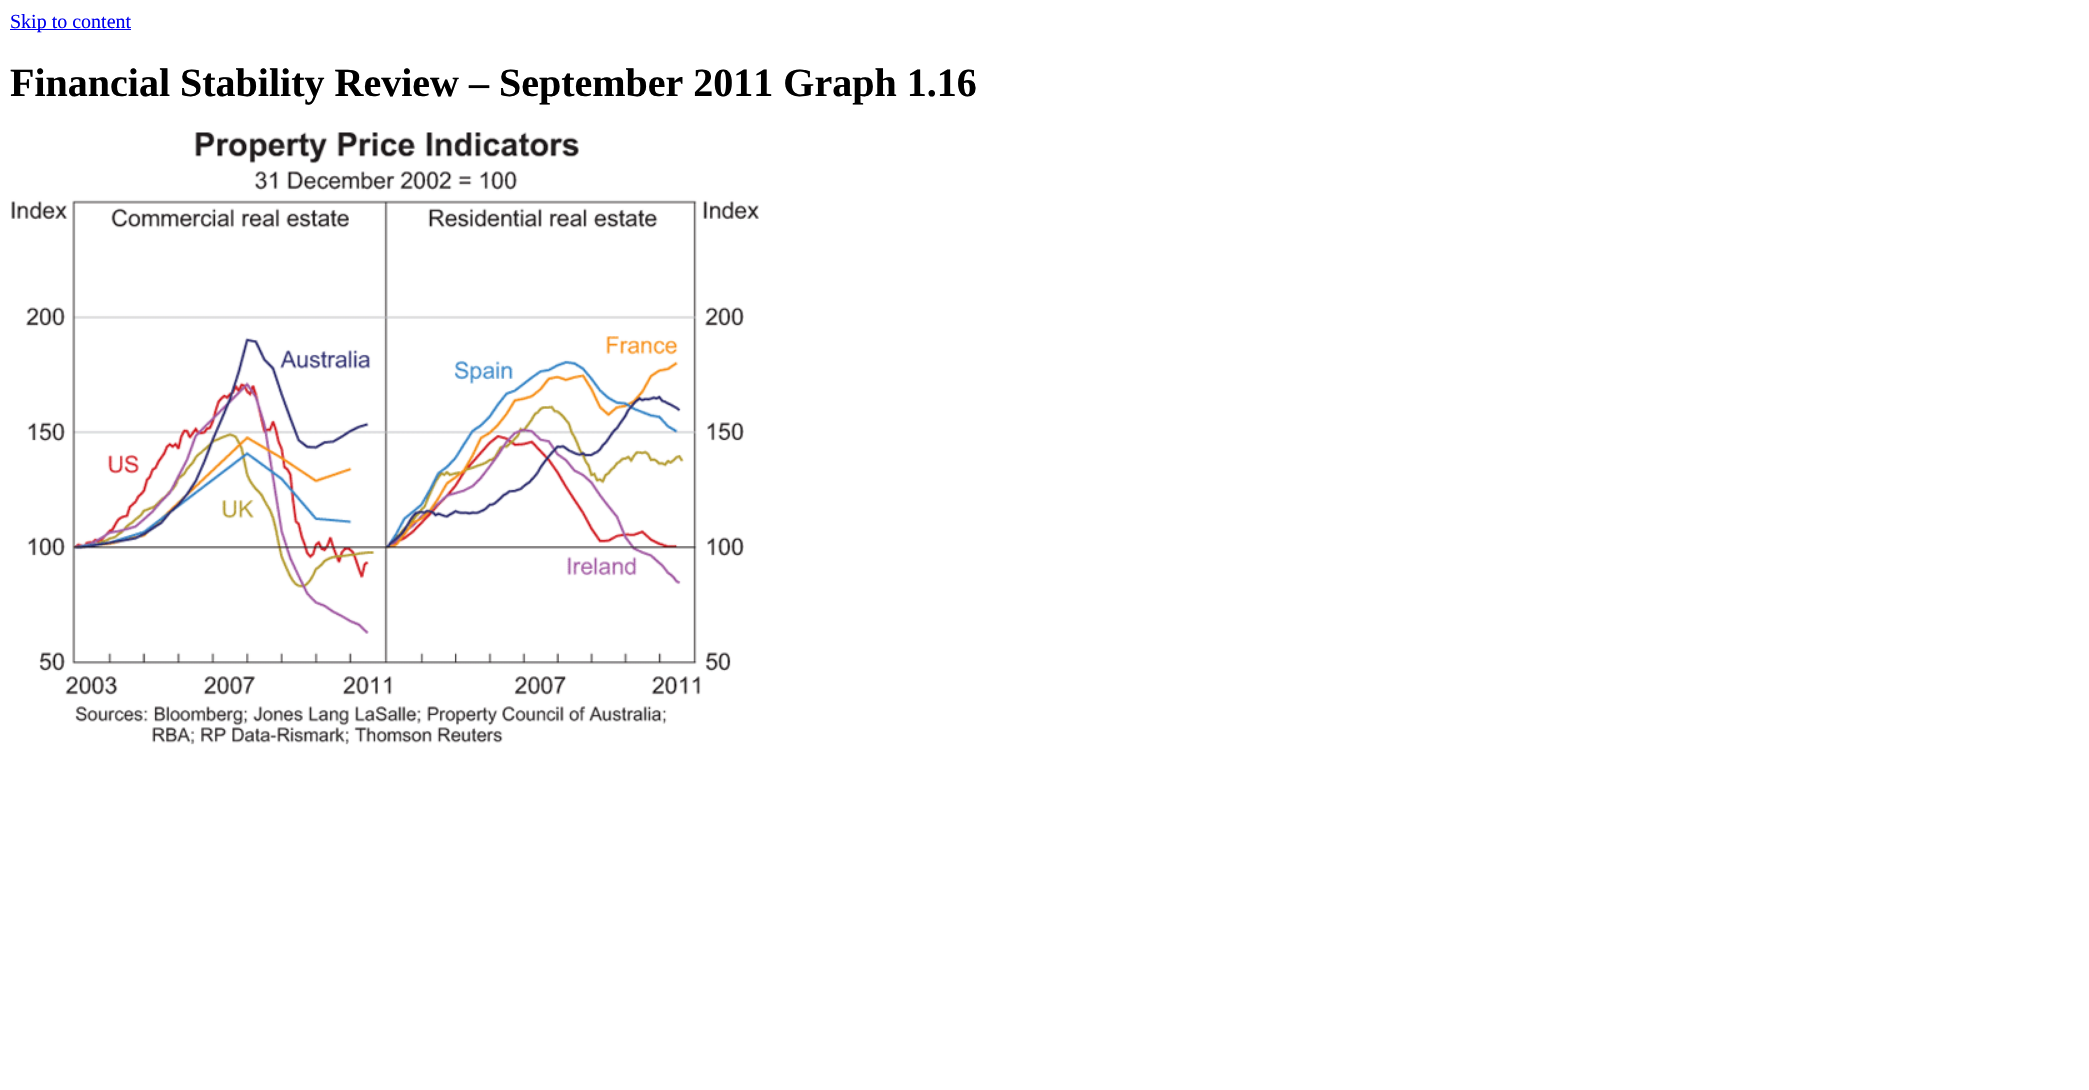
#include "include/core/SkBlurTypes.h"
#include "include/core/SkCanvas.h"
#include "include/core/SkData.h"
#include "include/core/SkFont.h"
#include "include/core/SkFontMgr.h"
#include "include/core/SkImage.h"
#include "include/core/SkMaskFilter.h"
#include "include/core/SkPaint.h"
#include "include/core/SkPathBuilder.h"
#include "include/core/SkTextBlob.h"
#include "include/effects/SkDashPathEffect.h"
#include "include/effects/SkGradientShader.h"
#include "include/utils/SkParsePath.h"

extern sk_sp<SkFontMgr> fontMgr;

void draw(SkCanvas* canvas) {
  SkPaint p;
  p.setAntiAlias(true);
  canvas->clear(SK_ColorWHITE);
  p.setColor(SkColorSetRGB(0, 0, 238));
  canvas->drawRect(SkRect::MakeLTRB(10, 29, 131, 30), p);
  canvas->drawImageRect(SkImages::DeferredFromEncodedData(SkData::MakeFromFileName("images/1.png")), SkRect::MakeLTRB(11, 132, 759, 745), SkSamplingOptions());
  SkFont font1(fontMgr->matchFamilyStyle("Liberation Serif", SkFontStyle::Normal()), 20);
  font1.setSubpixel(true);
  canvas->drawString("Skip to content", 10, 28, font1, p);
  SkFont font2(fontMgr->matchFamilyStyle("Liberation Serif", SkFontStyle::Bold()), 40);
  font2.setSubpixel(true);
  p.setColor(SK_ColorBLACK);
  canvas->drawString("Financial Stability Review – September 2011 Graph 1.16", 10, 96, font2, p);
}
